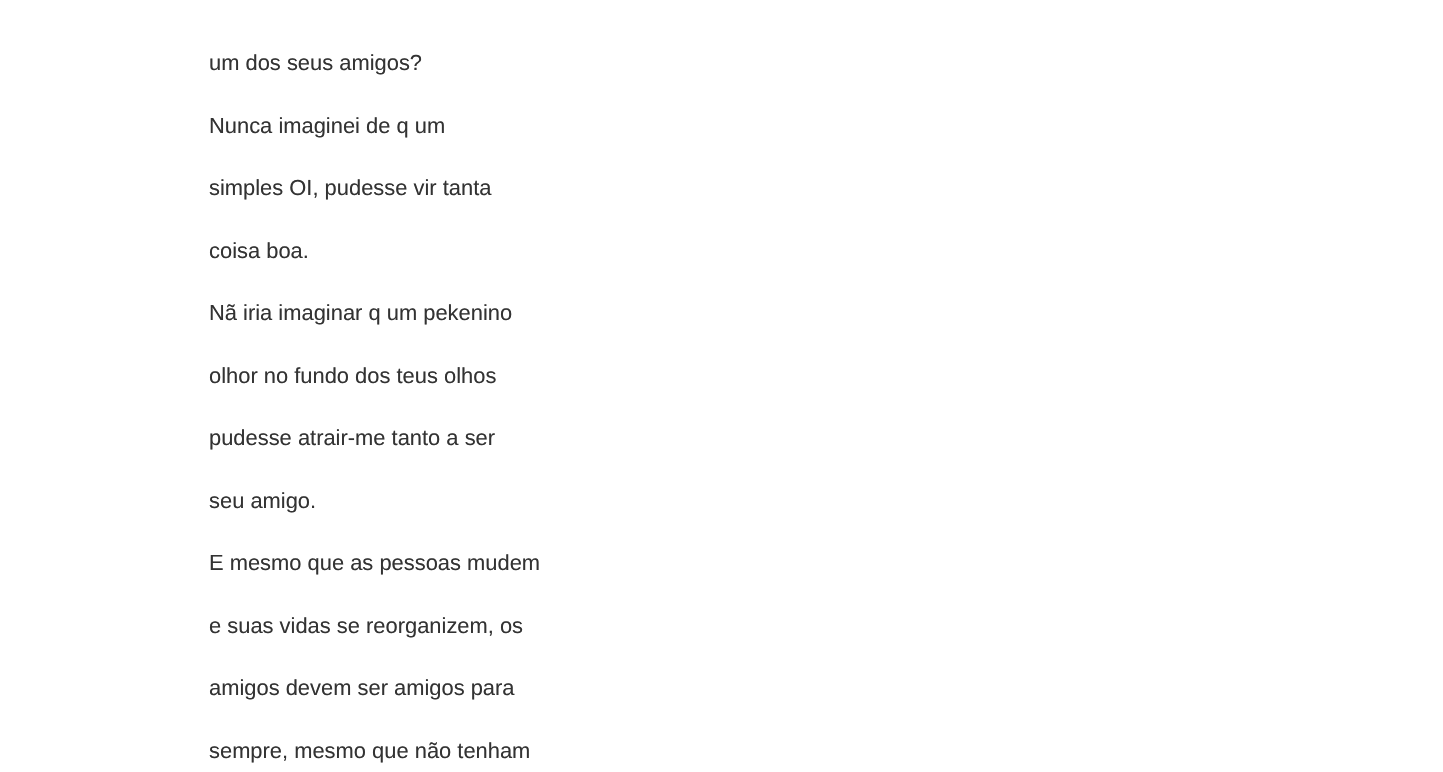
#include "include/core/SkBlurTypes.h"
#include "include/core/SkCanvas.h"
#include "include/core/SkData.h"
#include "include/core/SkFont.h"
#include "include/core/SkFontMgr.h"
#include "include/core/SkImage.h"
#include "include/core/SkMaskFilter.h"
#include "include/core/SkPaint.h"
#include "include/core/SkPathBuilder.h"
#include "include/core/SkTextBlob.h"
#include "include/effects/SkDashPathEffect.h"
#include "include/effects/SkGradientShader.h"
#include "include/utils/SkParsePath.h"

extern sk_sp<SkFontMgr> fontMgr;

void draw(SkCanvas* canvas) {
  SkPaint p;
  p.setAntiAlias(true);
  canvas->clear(SK_ColorWHITE);
  SkFont font1(fontMgr->matchFamilyStyle("Liberation Sans", SkFontStyle::Normal()), 21.9f);
  font1.setSubpixel(true);
  p.setColor(SkColorSetRGB(51, 51, 51));
  canvas->drawString("um dos seus amigos?", 209, 70, font1, p);
  canvas->drawString("Nunca imaginei de q um", 209, 133, font1, p);
  canvas->drawString("simples OI, pudesse vir tanta", 209, 195, font1, p);
  canvas->drawString("coisa boa.", 209, 258, font1, p);
  canvas->drawString("Nã iria imaginar q um pekenino", 209, 320, font1, p);
  canvas->drawString("olhor no fundo dos teus olhos", 209, 383, font1, p);
  canvas->drawString("pudesse atrair-me tanto a ser", 209, 445, font1, p);
  canvas->drawString("seu amigo.", 209, 508, font1, p);
  canvas->drawString("E mesmo que as pessoas mudem", 209, 570, font1, p);
  canvas->drawString("e suas vidas se reorganizem, os", 209, 633, font1, p);
  canvas->drawString("amigos devem ser amigos para", 209, 695, font1, p);
  canvas->drawString("sempre, mesmo que não tenham", 209, 758, font1, p);
}
